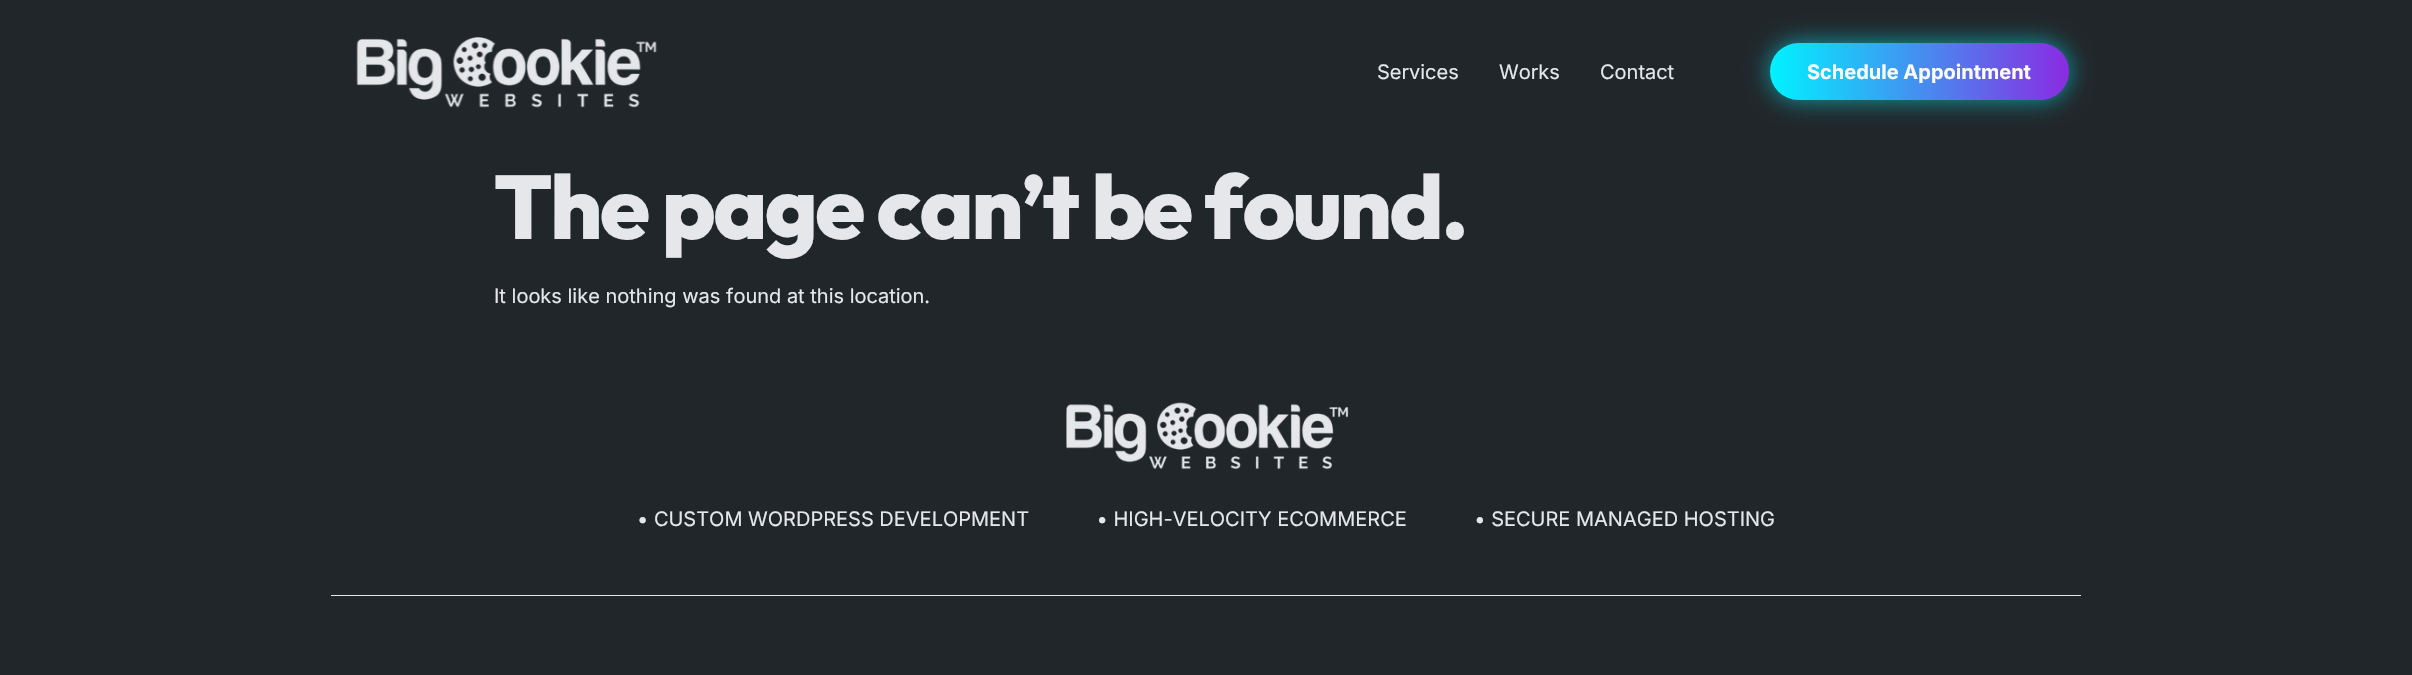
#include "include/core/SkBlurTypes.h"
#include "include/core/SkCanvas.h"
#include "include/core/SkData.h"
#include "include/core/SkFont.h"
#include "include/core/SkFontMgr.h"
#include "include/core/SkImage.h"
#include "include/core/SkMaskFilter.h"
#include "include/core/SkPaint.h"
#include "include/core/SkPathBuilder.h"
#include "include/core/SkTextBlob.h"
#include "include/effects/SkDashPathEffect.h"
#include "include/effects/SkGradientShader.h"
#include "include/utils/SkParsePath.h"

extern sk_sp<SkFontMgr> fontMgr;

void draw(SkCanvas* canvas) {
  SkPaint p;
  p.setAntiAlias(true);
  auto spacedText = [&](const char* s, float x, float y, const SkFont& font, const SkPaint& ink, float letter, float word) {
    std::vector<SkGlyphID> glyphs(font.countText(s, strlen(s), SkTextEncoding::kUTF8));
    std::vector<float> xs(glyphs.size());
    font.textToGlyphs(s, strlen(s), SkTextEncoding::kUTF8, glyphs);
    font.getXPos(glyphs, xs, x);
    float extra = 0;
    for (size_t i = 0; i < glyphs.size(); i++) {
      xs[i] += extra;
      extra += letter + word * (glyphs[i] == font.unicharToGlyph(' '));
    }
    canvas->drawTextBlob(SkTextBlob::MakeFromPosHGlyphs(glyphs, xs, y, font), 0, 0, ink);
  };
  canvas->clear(SkColorSetRGB(33, 38, 42));
  canvas->drawImageRect(SkImages::DeferredFromEncodedData(SkData::MakeFromFileName("images/1.png")), SkRect::MakeLTRB(356, 37, 657, 108), SkSamplingOptions());
  p.setColor(SkColorSetARGB(153, 0, 242, 255));
  p.setMaskFilter(SkMaskFilter::MakeBlur(kNormal_SkBlurStyle, 12.5f));
  canvas->drawRoundRect(SkRect::MakeLTRB(1770, 43, 2069, 100), 28.5f, 28.5f, p);
  p.setMaskFilter(nullptr);
  {
    const SkColor colors[] = {SkColorSetRGB(0, 242, 255), SkColorSetRGB(138, 43, 226)};
    const float stops[] = {0, 1};
    const SkPoint ends[] = {{1770, 71}, {2069, 71}};
    p.setShader(SkGradientShader::MakeLinear(ends, colors, stops, 2, SkTileMode::kClamp));
    p.setAlpha(255);
  }
  canvas->drawRoundRect(SkRect::MakeLTRB(1770, 43, 2069, 100), 28.5f, 28.5f, p);
  canvas->drawImageRect(SkImages::DeferredFromEncodedData(SkData::MakeFromFileName("images/2.png")), SkRect::MakeLTRB(1066, 402, 1349, 470), SkSamplingOptions());
  p.setShader(nullptr);
  p.setColor(SkColorSetRGB(229, 231, 235));
  canvas->drawRect(SkRect::MakeLTRB(331, 595, 2081, 596), p);
  SkFont font1(fontMgr->matchFamilyStyle("Inter", SkFontStyle::Normal()), 20);
  font1.setSubpixel(true);
  canvas->drawString("Services", 1377, 79, font1, p);
  canvas->drawString("Works", 1499, 79, font1, p);
  canvas->drawString("Contact", 1600, 79, font1, p);
  SkFont font2(fontMgr->matchFamilyStyle("Inter", SkFontStyle::Bold()), 20);
  font2.setSubpixel(true);
  p.setColor(SK_ColorWHITE);
  canvas->drawString("Schedule Appointment", 1807, 79, font2, p);
  SkFont font3(fontMgr->matchFamilyStyle("Outfit", SkFontStyle(800, SkFontStyle::kNormal_Width, SkFontStyle::kUpright_Slant)), 90);
  font3.setSubpixel(true);
  p.setColor(SkColorSetRGB(229, 231, 235));
  spacedText("The page can’t be found.", 494, 239, font3, p, -2.5f, 0);
  canvas->drawString("It looks like nothing was found at this location.", 494, 303, font1, p);
  canvas->drawString("• CUSTOM WORDPRESS DEVELOPMENT            • HIGH-VELOCITY ECOMMERCE            • SECURE MANAGED HOSTING", 637, 526, font1, p);
}
